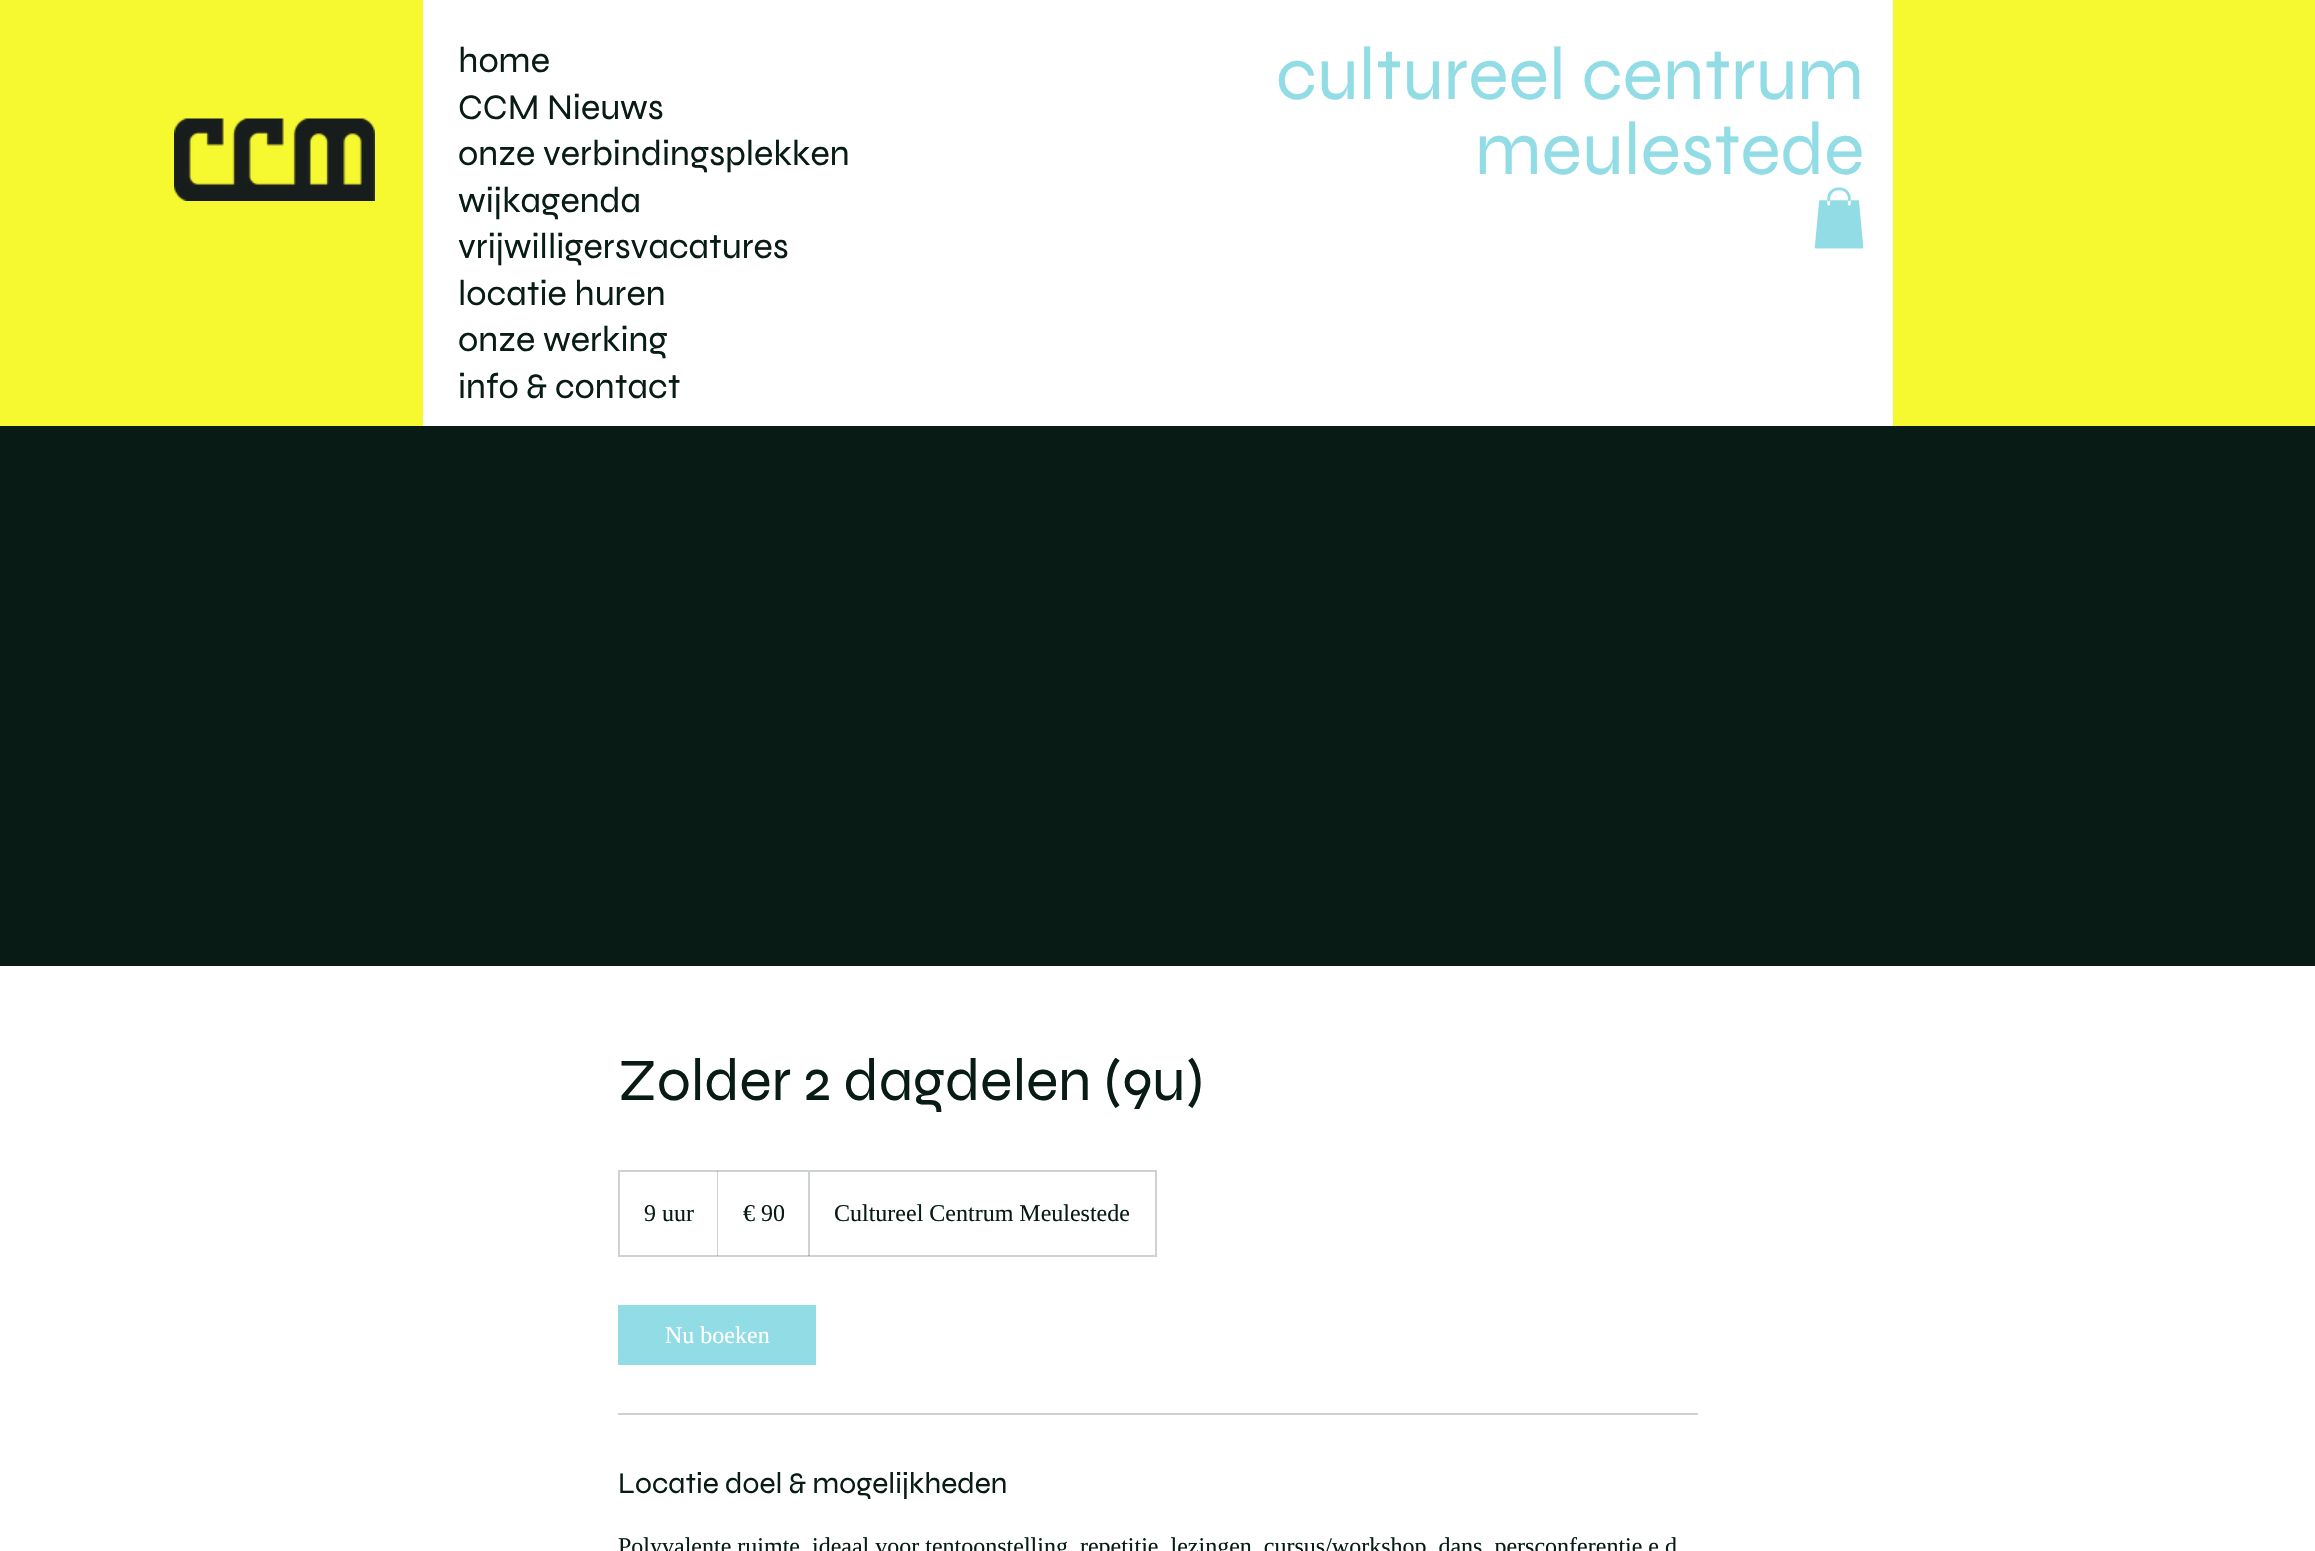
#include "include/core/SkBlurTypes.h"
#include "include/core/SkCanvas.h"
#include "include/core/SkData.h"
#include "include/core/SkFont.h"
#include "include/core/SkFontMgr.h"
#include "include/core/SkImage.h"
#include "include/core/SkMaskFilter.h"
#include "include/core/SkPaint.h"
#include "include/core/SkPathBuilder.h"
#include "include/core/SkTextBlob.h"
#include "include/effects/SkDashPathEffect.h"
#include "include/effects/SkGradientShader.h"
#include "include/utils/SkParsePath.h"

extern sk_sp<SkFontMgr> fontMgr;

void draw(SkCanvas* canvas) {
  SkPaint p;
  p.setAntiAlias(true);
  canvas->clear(SkColorSetRGB(246, 249, 48));
  p.setColor(SK_ColorWHITE);
  canvas->drawRect(SkRect::MakeLTRB(423, 0, 1893, 426), p);
  canvas->drawImageRect(SkImages::DeferredFromEncodedData(SkData::MakeFromFileName("images/1.png")), SkRect::MakeLTRB(174, 118, 375, 201), SkSamplingOptions());
  canvas->drawImageRect(SkImages::DeferredFromEncodedData(SkData::MakeFromFileName("images/2.png")), SkRect::MakeLTRB(1814, 187, 1864, 249), SkSamplingOptions());
  p.setColor(SkColorSetRGB(8, 28, 21));
  canvas->drawRect(SkRect::MakeLTRB(0, 426, 2315, 966), p);
  p.setColor(SK_ColorWHITE);
  canvas->drawRect(SkRect::MakeLTRB(0, 966, 2315, 1551), p);
  p.setStyle(SkPaint::kStroke_Style);
  p.setStrokeWidth(2);
  p.setColor(SkColorSetRGB(206, 210, 208));
  canvas->drawRect(SkRect::MakeLTRB(619, 1171, 1156, 1256), p);
  p.setStyle(SkPaint::kFill_Style);
  p.setColor(SkColorSetARGB(51, 8, 28, 21));
  canvas->drawPath(SkPathBuilder().moveTo(717, 1256).lineTo(717, 1170).lineTo(718, 1172).lineTo(718, 1256).close().detach(), p);
  canvas->save();
  canvas->clipRect(SkRect::MakeLTRB(620, 1172, 1155, 1256));
  canvas->drawPath(SkPathBuilder().moveTo(808, 1256).lineTo(808, 1170).lineTo(810, 1172).lineTo(810, 1256).close().detach(), p);
  canvas->restore();
  p.setColor(SkColorSetRGB(146, 220, 229));
  canvas->drawRect(SkRect::MakeLTRB(618, 1305, 816, 1365), p);
  p.setColor(SkColorSetRGB(206, 210, 208));
  canvas->drawRect(SkRect::MakeLTRB(618, 1413, 1698, 1415), p);
  SkFont font1(fontMgr->matchFamilyStyle("Syne", SkFontStyle::Normal()), 36);
  font1.setSubpixel(true);
  p.setColor(SkColorSetRGB(8, 28, 21));
  canvas->drawString("home", 458, 72, font1, p);
  canvas->drawString("CCM Nieuws", 458, 119, font1, p);
  canvas->drawString("onze verbindingsplekken", 458, 165, font1, p);
  canvas->drawString("wijkagenda", 458, 212, font1, p);
  canvas->drawString("vrijwilligersvacatures", 458, 258, font1, p);
  canvas->drawString("locatie huren", 458, 305, font1, p);
  canvas->drawString("onze werking", 458, 351, font1, p);
  canvas->drawString("info & contact", 458, 398, font1, p);
  SkFont font2(fontMgr->matchFamilyStyle("Syne", SkFontStyle::Normal()), 75);
  font2.setSubpixel(true);
  p.setColor(SkColorSetRGB(146, 220, 229));
  canvas->drawString("cultureel centrum", 1276, 99, font2, p);
  canvas->drawString("meulestede", 1475, 174, font2, p);
  SkFont font3(fontMgr->matchFamilyStyle("Syne", SkFontStyle::Normal()), 60);
  font3.setSubpixel(true);
  p.setColor(SkColorSetRGB(8, 28, 21));
  canvas->drawString("Zolder 2 dagdelen (9u)", 618, 1100, font3, p);
  SkFont font4(fontMgr->matchFamilyStyle("Liberation Serif", SkFontStyle::Normal()), 24);
  font4.setSubpixel(true);
  canvas->drawString("9 uur", 644, 1221, font4, p);
  canvas->drawString("€ 90", 743, 1221, font4, p);
  canvas->drawString("Cultureel Centrum Meulestede", 834, 1221, font4, p);
  p.setColor(SK_ColorWHITE);
  canvas->drawString("Nu boeken", 665, 1343, font4, p);
  SkFont font5(fontMgr->matchFamilyStyle("Syne", SkFontStyle::Normal()), 30);
  font5.setSubpixel(true);
  p.setColor(SkColorSetRGB(8, 28, 21));
  canvas->drawString("Locatie doel & mogelijkheden", 618, 1493, font5, p);
  canvas->drawString("Polyvalente ruimte, ideaal voor tentoonstelling, repetitie, lezingen, cursus/workshop, dans, persconferentie e.d", 618, 1554, font4, p);
}
